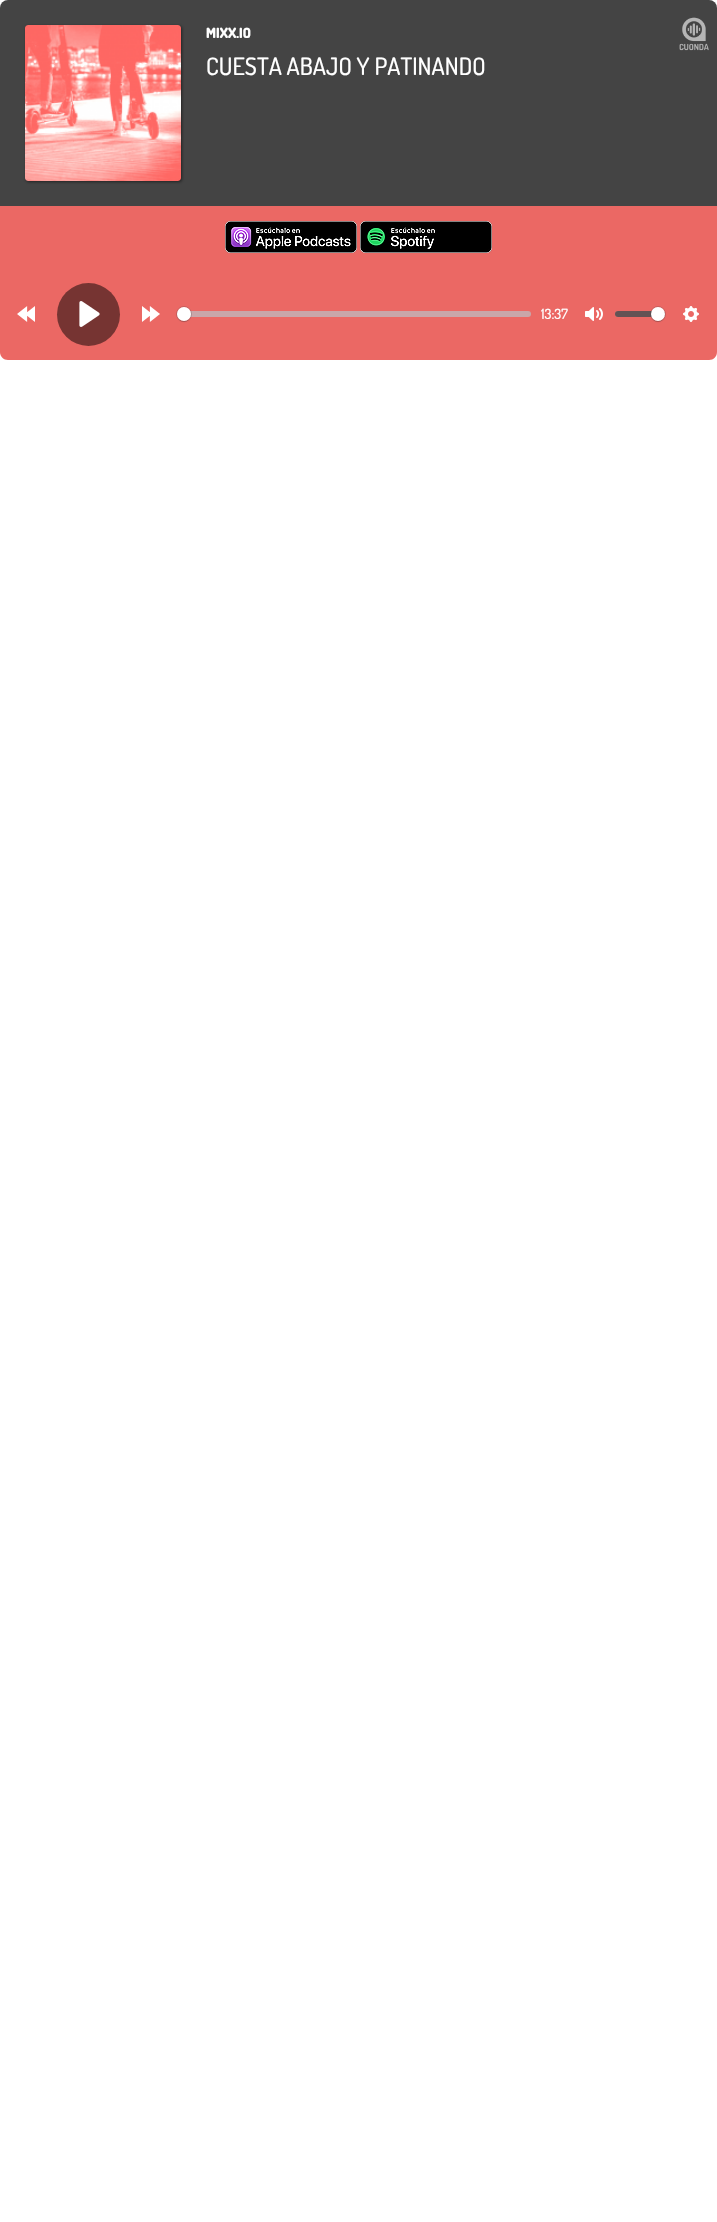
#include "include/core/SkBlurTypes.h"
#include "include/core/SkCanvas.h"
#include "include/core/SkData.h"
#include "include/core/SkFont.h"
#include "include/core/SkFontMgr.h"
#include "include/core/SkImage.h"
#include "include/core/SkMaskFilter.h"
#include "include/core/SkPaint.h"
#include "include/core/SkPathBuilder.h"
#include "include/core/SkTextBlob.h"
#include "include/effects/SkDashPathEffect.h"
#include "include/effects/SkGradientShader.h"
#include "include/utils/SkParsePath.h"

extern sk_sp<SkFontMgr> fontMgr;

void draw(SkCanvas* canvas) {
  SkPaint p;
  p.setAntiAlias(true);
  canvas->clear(SK_ColorWHITE);
  p.setColor(SkColorSetRGB(68, 68, 68));
  canvas->drawRoundRect(SkRect::MakeLTRB(0, 0, 717, 299), 8, 8, p);
  p.setColor(SkColorSetARGB(128, 0, 0, 0));
  p.setMaskFilter(SkMaskFilter::MakeBlur(kNormal_SkBlurStyle, 1.5f));
  canvas->drawRoundRect(SkRect::MakeLTRB(26, 26, 182, 182), 3, 3, p);
  p.setMaskFilter(nullptr);
  canvas->drawImageRect(SkImages::DeferredFromEncodedData(SkData::MakeFromFileName("images/1.png")), SkRect::MakeLTRB(25, 25, 181, 181), SkSamplingOptions());
  canvas->drawImageRect(SkImages::DeferredFromEncodedData(SkData::MakeFromFileName("images/2.png")), SkRect::MakeLTRB(679, 17, 709, 51), SkSamplingOptions());
  p.setColor(SkColorSetRGB(235, 104, 100));
  canvas->drawRect(SkRect::MakeLTRB(0, 206, 717, 268), p);
  canvas->drawImageRect(SkImages::DeferredFromEncodedData(SkData::MakeFromFileName("images/3.png")), SkRect::MakeLTRB(225, 221, 357, 253), SkSamplingOptions());
  canvas->drawImageRect(SkImages::DeferredFromEncodedData(SkData::MakeFromFileName("images/4.png")), SkRect::MakeLTRB(360, 221, 492, 253), SkSamplingOptions());
  canvas->drawPath(SkPathBuilder().moveTo(0, 268).lineTo(717, 268).lineTo(717, 352).cubicTo(717, 356.5f, 713.5f, 360, 709, 360).lineTo(8, 360).cubicTo(3.5f, 360, 0, 356.5f, 0, 352).close().detach(), p);
  canvas->drawImageRect(SkImages::DeferredFromEncodedData(SkData::MakeFromFileName("images/5.png")), SkRect::MakeLTRB(17, 306, 35, 322), SkSamplingOptions());
  p.setColor(SkColorSetRGB(118, 52, 50));
  canvas->drawCircle(88.5f, 314.5f, 31.5f, p);
  canvas->drawImageRect(SkImages::DeferredFromEncodedData(SkData::MakeFromFileName("images/6.png")), SkRect::MakeLTRB(79, 301, 100, 327), SkSamplingOptions());
  canvas->drawImageRect(SkImages::DeferredFromEncodedData(SkData::MakeFromFileName("images/7.png")), SkRect::MakeLTRB(142, 306, 160, 322), SkSamplingOptions());
  p.setColor(SkColorSetARGB(168, 183, 197, 205));
  canvas->drawRoundRect(SkRect::MakeLTRB(177, 311, 531, 317), 3, 3, p);
  p.setStyle(SkPaint::kStroke_Style);
  p.setStrokeWidth(1);
  p.setColor(SkColorSetARGB(51, 47, 52, 61));
  canvas->drawCircle(184, 314, 7.5f, p);
  p.setStyle(SkPaint::kFill_Style);
  p.setColor(SkColorSetARGB(38, 0, 0, 0));
  p.setMaskFilter(SkMaskFilter::MakeBlur(kNormal_SkBlurStyle, 0.5f));
  canvas->drawRoundRect(SkRect::MakeLTRB(177, 308, 191, 322), 7, 7, p);
  p.setMaskFilter(nullptr);
  p.setColor(SK_ColorWHITE);
  canvas->drawCircle(184, 314, 7, p);
  canvas->drawImageRect(SkImages::DeferredFromEncodedData(SkData::MakeFromFileName("images/8.png")), SkRect::MakeLTRB(585, 307, 603, 321), SkSamplingOptions());
  p.setColor(SkColorSetRGB(201, 165, 169));
  canvas->drawRoundRect(SkRect::MakeLTRB(615, 311, 665, 317), 3, 3, p);
  p.setColor(SkColorSetARGB(128, 0, 0, 0));
  canvas->drawRoundRect(SkRect::MakeLTRB(615, 311, 665, 317), 3, 3, p);
  p.setStyle(SkPaint::kStroke_Style);
  p.setColor(SkColorSetARGB(51, 47, 52, 61));
  canvas->drawCircle(658, 314, 7.5f, p);
  p.setStyle(SkPaint::kFill_Style);
  p.setColor(SkColorSetARGB(38, 0, 0, 0));
  p.setMaskFilter(SkMaskFilter::MakeBlur(kNormal_SkBlurStyle, 0.5f));
  canvas->drawRoundRect(SkRect::MakeLTRB(651, 308, 665, 322), 7, 7, p);
  p.setMaskFilter(nullptr);
  p.setColor(SK_ColorWHITE);
  canvas->drawCircle(658, 314, 7, p);
  canvas->drawImageRect(SkImages::DeferredFromEncodedData(SkData::MakeFromFileName("images/9.png")), SkRect::MakeLTRB(683, 306, 699, 322), SkSamplingOptions());
  SkFont font1(fontMgr->matchFamilyStyle("Dosis", SkFontStyle(800, SkFontStyle::kNormal_Width, SkFontStyle::kUpright_Slant)), 14);
  font1.setSubpixel(true);
  canvas->drawString("MIXX.IO", 206, 38, font1, p);
  SkFont font2(fontMgr->matchFamilyStyle("Dosis", SkFontStyle(500, SkFontStyle::kNormal_Width, SkFontStyle::kUpright_Slant)), 24);
  font2.setSubpixel(true);
  canvas->drawString("CUESTA ABAJO Y PATINANDO", 206, 75, font2, p);
  SkFont font3(fontMgr->matchFamilyStyle("Dosis", SkFontStyle(500, SkFontStyle::kNormal_Width, SkFontStyle::kUpright_Slant)), 14);
  font3.setSubpixel(true);
  canvas->drawString("13:37", 541, 319, font3, p);
}
